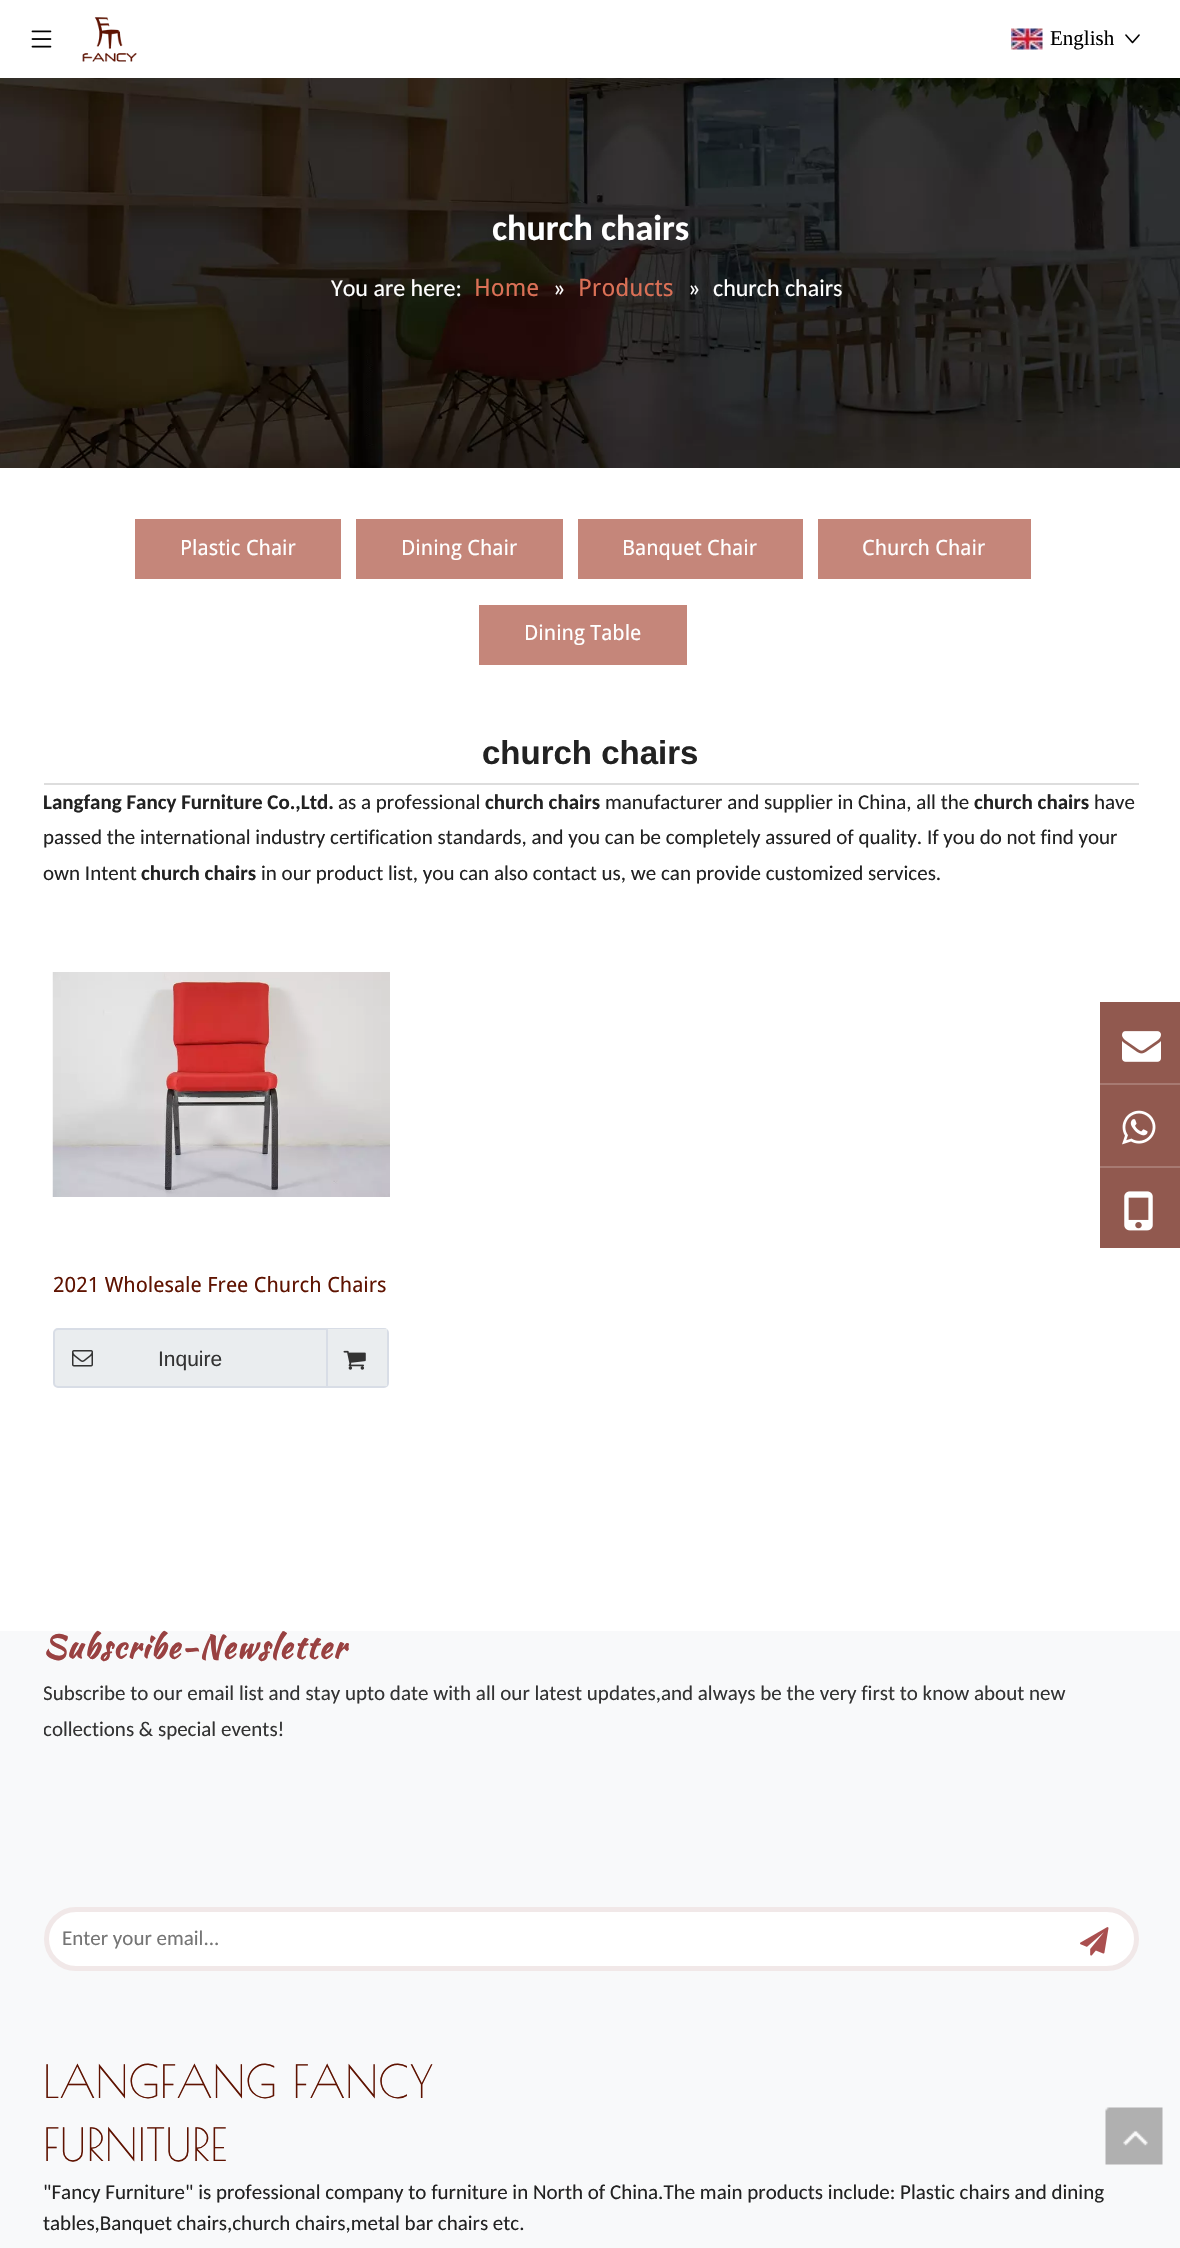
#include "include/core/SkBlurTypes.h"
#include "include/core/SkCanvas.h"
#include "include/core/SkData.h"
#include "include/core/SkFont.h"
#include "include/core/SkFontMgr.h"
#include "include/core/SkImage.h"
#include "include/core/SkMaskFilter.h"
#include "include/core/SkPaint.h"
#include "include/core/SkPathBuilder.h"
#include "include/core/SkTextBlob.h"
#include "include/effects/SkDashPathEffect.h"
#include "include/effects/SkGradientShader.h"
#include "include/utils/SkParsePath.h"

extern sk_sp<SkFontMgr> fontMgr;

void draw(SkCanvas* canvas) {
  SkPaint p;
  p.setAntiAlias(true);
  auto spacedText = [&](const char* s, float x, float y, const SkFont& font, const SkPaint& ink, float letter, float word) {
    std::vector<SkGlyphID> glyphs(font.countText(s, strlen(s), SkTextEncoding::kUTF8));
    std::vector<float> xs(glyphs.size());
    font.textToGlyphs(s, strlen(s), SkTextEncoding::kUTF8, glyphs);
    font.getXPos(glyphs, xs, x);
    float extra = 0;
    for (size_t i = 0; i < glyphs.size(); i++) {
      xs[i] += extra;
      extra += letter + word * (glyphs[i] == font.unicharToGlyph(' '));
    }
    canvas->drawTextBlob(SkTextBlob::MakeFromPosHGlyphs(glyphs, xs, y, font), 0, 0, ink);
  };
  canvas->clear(SK_ColorWHITE);
  canvas->drawImageRect(SkImages::DeferredFromEncodedData(SkData::MakeFromFileName("images/1.png")), SkRect::MakeLTRB(31, 30, 52, 48), SkSamplingOptions());
  canvas->drawImageRect(SkImages::DeferredFromEncodedData(SkData::MakeFromFileName("images/2.png")), SkRect::MakeLTRB(82, 17, 137, 62), SkSamplingOptions());
  canvas->drawImageRect(SkImages::DeferredFromEncodedData(SkData::MakeFromFileName("images/3.png")), SkRect::MakeLTRB(1011, 28, 1043, 50), SkSamplingOptions());
  canvas->drawImageRect(SkImages::DeferredFromEncodedData(SkData::MakeFromFileName("images/4.png")), SkRect::MakeLTRB(1125, 34, 1140, 44), SkSamplingOptions());
  canvas->drawImageRect(SkImages::DeferredFromEncodedData(SkData::MakeFromFileName("images/5.png")), SkRect::MakeLTRB(0, 78, 1180, 468), SkSamplingOptions());
  p.setColor(SkColorSetRGB(197, 134, 122));
  canvas->drawRect(SkRect::MakeLTRB(135, 519, 341, 579), p);
  canvas->drawRect(SkRect::MakeLTRB(356, 519, 563, 579), p);
  canvas->drawRect(SkRect::MakeLTRB(578, 519, 803, 579), p);
  canvas->drawRect(SkRect::MakeLTRB(818, 519, 1031, 579), p);
  canvas->drawRect(SkRect::MakeLTRB(479, 605, 687, 665), p);
  p.setColor(SkColorSetRGB(221, 221, 221));
  canvas->drawRect(SkRect::MakeLTRB(44, 783, 1139, 785), p);
  canvas->drawImageRect(SkImages::DeferredFromEncodedData(SkData::MakeFromFileName("images/6.png")), SkRect::MakeLTRB(52, 972, 390, 1197), SkSamplingOptions());
  p.setColor(SkColorSetRGB(234, 237, 239));
  canvas->drawRoundRect(SkRect::MakeLTRB(54, 1329, 388, 1387), 4, 4, p);
  p.setStyle(SkPaint::kStroke_Style);
  p.setStrokeWidth(2);
  p.setColor(SkColorSetRGB(216, 221, 230));
  canvas->drawRoundRect(SkRect::MakeLTRB(54, 1329, 388, 1387), 4, 4, p);
  canvas->drawImageRect(SkImages::DeferredFromEncodedData(SkData::MakeFromFileName("images/7.png")), SkRect::MakeLTRB(72, 1350, 93, 1367), SkSamplingOptions());
  p.setStyle(SkPaint::kFill_Style);
  p.setColor(SkColorSetRGB(234, 237, 239));
  canvas->drawRect(SkRect::MakeLTRB(328, 1329, 387, 1386), p);
  p.setColor(SkColorSetRGB(216, 221, 230));
  canvas->drawRect(SkRect::MakeLTRB(326, 1329, 328, 1386), p);
  canvas->drawImageRect(SkImages::DeferredFromEncodedData(SkData::MakeFromFileName("images/8.png")), SkRect::MakeLTRB(343, 1350, 366, 1370), SkSamplingOptions());
  p.setColor(SkColorSetRGB(248, 249, 250));
  canvas->drawRect(SkRect::MakeLTRB(0, 1631, 1180, 2248), p);
  p.setColor(SkColorSetRGB(145, 89, 79));
  canvas->drawRect(SkRect::MakeLTRB(1100, 1002, 1180, 1248), p);
  p.setColor(SkColorSetRGB(167, 122, 114));
  canvas->drawRect(SkRect::MakeLTRB(1100, 1083, 1180, 1085), p);
  canvas->drawImageRect(SkImages::DeferredFromEncodedData(SkData::MakeFromFileName("images/9.png")), SkRect::MakeLTRB(1122, 1031, 1161, 1062), SkSamplingOptions());
  canvas->drawRect(SkRect::MakeLTRB(1100, 1166, 1180, 1168), p);
  canvas->drawImageRect(SkImages::DeferredFromEncodedData(SkData::MakeFromFileName("images/10.png")), SkRect::MakeLTRB(1122, 1110, 1156, 1145), SkSamplingOptions());
  canvas->drawImageRect(SkImages::DeferredFromEncodedData(SkData::MakeFromFileName("images/11.png")), SkRect::MakeLTRB(1124, 1191, 1153, 1231), SkSamplingOptions());
  p.setColor(SK_ColorWHITE);
  canvas->drawRoundRect(SkRect::MakeLTRB(46.5f, 1909.5f, 1136.5f, 1968.5f), 29.5f, 29.5f, p);
  p.setStyle(SkPaint::kStroke_Style);
  p.setStrokeWidth(5);
  p.setColor(SkColorSetRGB(241, 232, 232));
  canvas->drawRoundRect(SkRect::MakeLTRB(46.5f, 1909.5f, 1136.5f, 1968.5f), 29.5f, 29.5f, p);
  canvas->drawImageRect(SkImages::DeferredFromEncodedData(SkData::MakeFromFileName("images/12.png")), SkRect::MakeLTRB(1080, 1927, 1109, 1956), SkSamplingOptions());
  canvas->drawImageRect(SkImages::DeferredFromEncodedData(SkData::MakeFromFileName("images/13.png")), SkRect::MakeLTRB(1105, 2107, 1163, 2165), SkSamplingOptions());
  SkFont font1(fontMgr->matchFamilyStyle("Liberation Serif", SkFontStyle::Normal()), 21);
  font1.setSubpixel(true);
  p.setStyle(SkPaint::kFill_Style);
  p.setColor(SK_ColorBLACK);
  canvas->drawString("English", 1050, 45, font1, p);
  SkFont font2(fontMgr->matchFamilyStyle("Carlito", SkFontStyle::Bold()), 36);
  font2.setSubpixel(true);
  p.setColor(SK_ColorWHITE);
  canvas->drawString("church chairs", 492, 240, font2, p);
  SkFont font3(fontMgr->matchFamilyStyle("Carlito", SkFontStyle::Normal()), 24);
  font3.setSubpixel(true);
  canvas->drawString("You are here:", 331, 296, font3, p);
  SkFont font4(fontMgr->matchFamilyStyle("Droid Sans", SkFontStyle::Normal()), 24);
  font4.setSubpixel(true);
  p.setColor(SkColorSetRGB(219, 112, 86));
  canvas->drawString("Home", 474, 296, font4, p);
  p.setColor(SK_ColorWHITE);
  canvas->drawString("»", 553, 296, font3, p);
  p.setColor(SkColorSetRGB(219, 112, 86));
  canvas->drawString("Products", 578, 296, font4, p);
  p.setColor(SK_ColorWHITE);
  canvas->drawString("»", 688, 296, font3, p);
  canvas->drawString("church chairs", 713, 296, font3, p);
  SkFont font5(fontMgr->matchFamilyStyle("Droid Sans", SkFontStyle::Normal()), 21);
  font5.setSubpixel(true);
  canvas->drawString("Plastic Chair", 180, 555, font5, p);
  canvas->drawString("Dining Chair", 401, 555, font5, p);
  canvas->drawString("Banquet Chair", 622, 555, font5, p);
  canvas->drawString("Church Chair", 862, 555, font5, p);
  canvas->drawString("Dining Table", 524, 640, font5, p);
  SkFont font6(fontMgr->matchFamilyStyle("Liberation Sans", SkFontStyle::Bold()), 33);
  font6.setSubpixel(true);
  p.setColor(SkColorSetRGB(34, 34, 34));
  canvas->drawString("church chairs", 482, 764, font6, p);
  SkFont font7(fontMgr->matchFamilyStyle("Carlito", SkFontStyle::Bold()), 21);
  font7.setSubpixel(true);
  canvas->drawString("Langfang Fancy Furniture Co.,Ltd.", 43, 809, font7, p);
  SkFont font8(fontMgr->matchFamilyStyle("Carlito", SkFontStyle::Normal()), 21);
  font8.setSubpixel(true);
  canvas->drawString("as a professional", 338, 809, font8, p);
  canvas->drawString("church chairs", 485, 809, font7, p);
  canvas->drawString("manufacturer and supplier in China, all the", 605, 809, font8, p);
  canvas->drawString("church chairs", 974, 809, font7, p);
  canvas->drawString("have", 1094, 809, font8, p);
  canvas->drawString("passed the international industry certification standards, and you can be completely assured of quality. If you do not find your", 43, 844, font8, p);
  canvas->drawString("own Intent", 43, 880, font8, p);
  canvas->drawString("church chairs", 141, 880, font7, p);
  canvas->drawString("in our product list, you can also contact us, we can provide customized services.", 261, 880, font8, p);
  p.setColor(SkColorSetRGB(95, 19, 1));
  canvas->drawString("2021 Wholesale Free Church Chairs", 53, 1292, font5, p);
  SkFont font9(fontMgr->matchFamilyStyle("Liberation Sans", SkFontStyle::Normal()), 21);
  font9.setSubpixel(true);
  p.setColor(SkColorSetRGB(51, 51, 51));
  canvas->drawString("Inquire", 158, 1366, font9, p);
  SkFont font10(fontMgr->matchFamilyStyle("Kaushan Script", SkFontStyle::Bold()), 31.5f);
  font10.setSubpixel(true);
  p.setColor(SkColorSetRGB(153, 65, 65));
  spacedText("Subscribe-Newsletter", 43, 1658, font10, p, 1.5f, 0);
  canvas->save();
  canvas->clipRect(SkRect::MakeLTRB(44, 1676, 1139, 1748));
  p.setColor(SkColorSetRGB(51, 51, 51));
  canvas->drawString("Subscribe to our email list and stay upto date with all our latest updates,and always be the very first to know about new", 43, 1700, font8, p);
  canvas->drawString("collections & special events!", 43, 1736, font8, p);
  canvas->restore();
  p.setColor(SkColorSetRGB(117, 117, 117));
  canvas->drawString("Enter your email...", 62, 1945, font8, p);
  SkFont font11(fontMgr->matchFamilyStyle("Poiret One", SkFontStyle::Normal()), 45);
  font11.setSubpixel(true);
  p.setColor(SkColorSetRGB(95, 19, 1));
  canvas->drawString("LANGFANG FANCY", 43, 2098, font11, p);
  canvas->drawString("FURNITURE", 43, 2161, font11, p);
  p.setColor(SkColorSetRGB(34, 34, 34));
  canvas->drawString("\"Fancy Furniture\" is professional company to furniture in North of China.The main products include: Plastic chairs and dining", 43, 2199, font8, p);
  canvas->drawString("tables,Banquet chairs,church chairs,metal bar chairs etc.", 43, 2230, font8, p);
}
